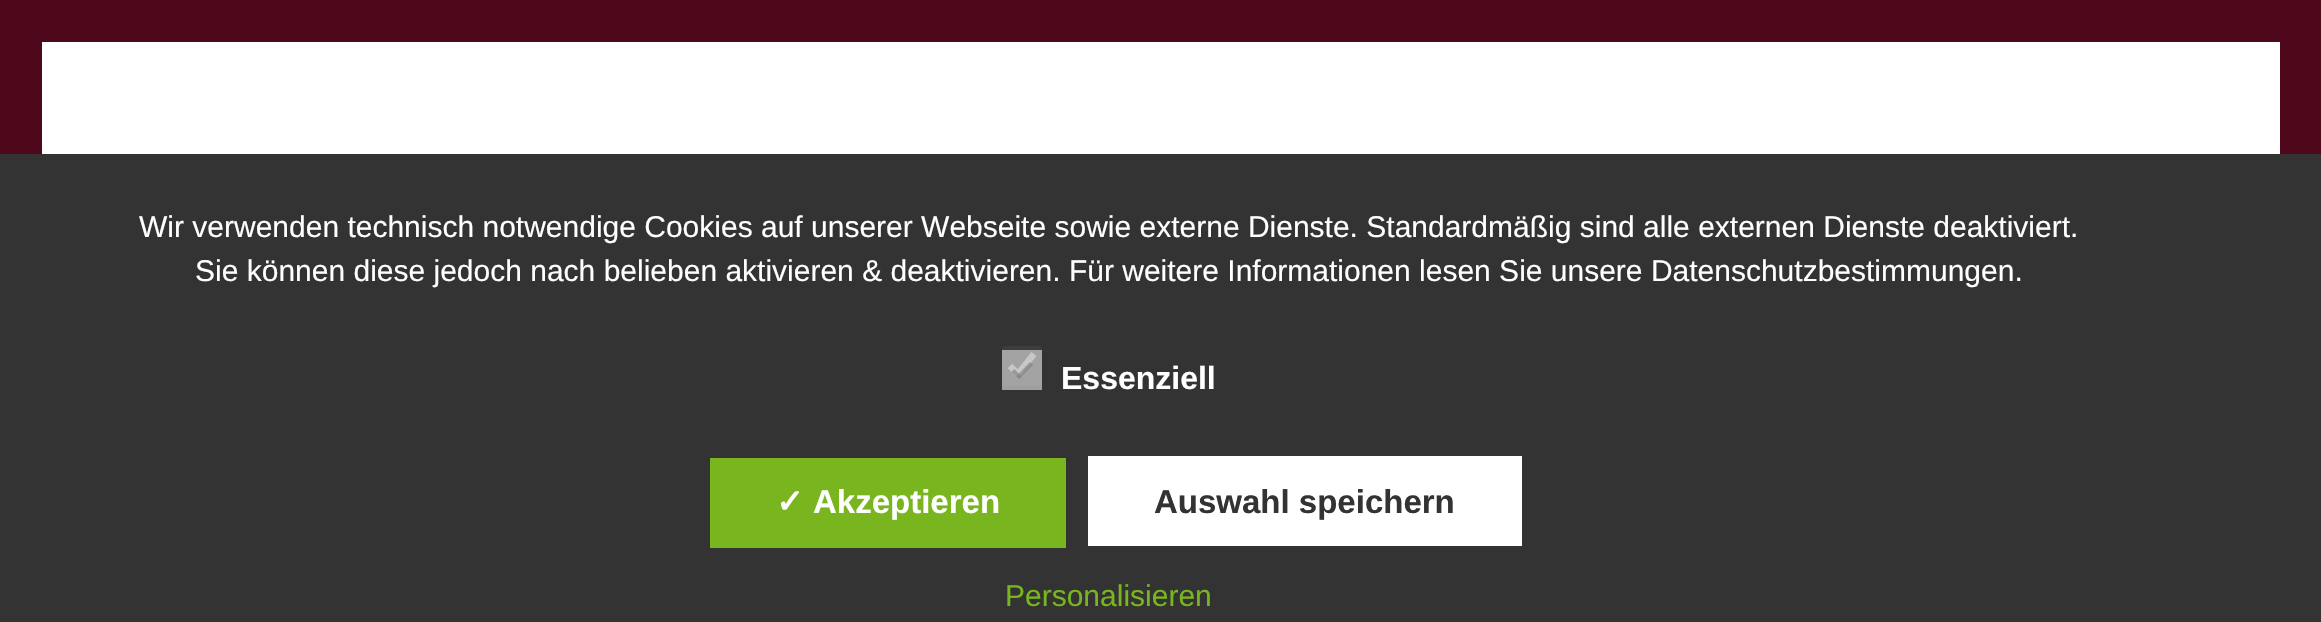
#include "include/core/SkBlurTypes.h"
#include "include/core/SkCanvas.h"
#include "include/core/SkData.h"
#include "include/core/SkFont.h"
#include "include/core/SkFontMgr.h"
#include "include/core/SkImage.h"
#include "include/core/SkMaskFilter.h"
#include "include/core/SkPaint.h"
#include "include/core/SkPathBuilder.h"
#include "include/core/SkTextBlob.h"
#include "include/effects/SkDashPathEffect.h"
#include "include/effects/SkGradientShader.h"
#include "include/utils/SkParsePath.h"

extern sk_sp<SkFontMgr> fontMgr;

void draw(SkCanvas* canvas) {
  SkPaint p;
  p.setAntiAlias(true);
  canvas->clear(SkColorSetRGB(79, 8, 27));
  p.setColor(SK_ColorWHITE);
  canvas->drawRect(SkRect::MakeLTRB(42, 42, 2280, 154), p);
  p.setColor(SkColorSetRGB(51, 51, 51));
  canvas->drawRect(SkRect::MakeLTRB(0, 154, 2321, 622), p);
  p.setColor(SkColorSetRGB(61, 61, 61));
  canvas->drawRoundRect(SkRect::MakeLTRB(1002, 346, 1042, 386), 4, 4, p);
  p.setStyle(SkPaint::kStroke_Style);
  p.setStrokeWidth(6.4f);
  p.setColor(SkColorSetRGB(153, 153, 153));
  canvas->drawPath(SkPathBuilder().moveTo(1010, 366).lineTo(1018, 374).lineTo(1034, 354).detach(), p);
  p.setStyle(SkPaint::kFill_Style);
  p.setColor(SkColorSetARGB(153, 230, 230, 230));
  canvas->drawRect(SkRect::MakeLTRB(1002, 350, 1042, 390), p);
  p.setColor(SkColorSetARGB(153, 123, 123, 123));
  canvas->drawPath(SkPathBuilder().moveTo(1030, 362).lineTo(1033, 365).lineTo(1019, 379).lineTo(1016, 376.5f).close().detach(), p);
  canvas->drawPath(SkPathBuilder().moveTo(1014.5f, 369).lineTo(1021.5f, 376.5f).lineTo(1019, 379).lineTo(1011.5f, 372).close().detach(), p);
  p.setColor(SkColorSetRGB(121, 181, 31));
  canvas->drawRect(SkRect::MakeLTRB(710, 458, 1066, 548), p);
  p.setColor(SK_ColorWHITE);
  canvas->drawRect(SkRect::MakeLTRB(1088, 456, 1522, 546), p);
  SkFont font1(fontMgr->matchFamilyStyle("Liberation Sans", SkFontStyle::Normal()), 30);
  font1.setSubpixel(true);
  canvas->drawString("Wir verwenden technisch notwendige Cookies auf unserer Webseite sowie externe Dienste. Standardmäßig sind alle externen Dienste deaktiviert.", 139, 237, font1, p);
  canvas->drawString("Sie können diese jedoch nach belieben aktivieren & deaktivieren. Für weitere Informationen lesen Sie unsere Datenschutzbestimmungen.", 195, 281, font1, p);
  SkFont font2(fontMgr->matchFamilyStyle("Liberation Sans", SkFontStyle::Bold()), 32);
  font2.setSubpixel(true);
  canvas->drawString("Essenziell", 1061, 389, font2, p);
  SkFont font3(fontMgr->matchFamilyStyle("DejaVu Sans", SkFontStyle::Bold()), 33);
  font3.setSubpixel(true);
  canvas->drawString("✓", 776, 513, font3, p);
  SkFont font4(fontMgr->matchFamilyStyle("Liberation Sans", SkFontStyle::Bold()), 33);
  font4.setSubpixel(true);
  canvas->drawString("Akzeptieren", 813, 513, font4, p);
  p.setColor(SkColorSetRGB(51, 51, 51));
  canvas->drawString("Auswahl speichern", 1154, 513, font4, p);
  p.setColor(SkColorSetRGB(121, 181, 31));
  canvas->drawString("Personalisieren", 1005, 606, font1, p);
}
